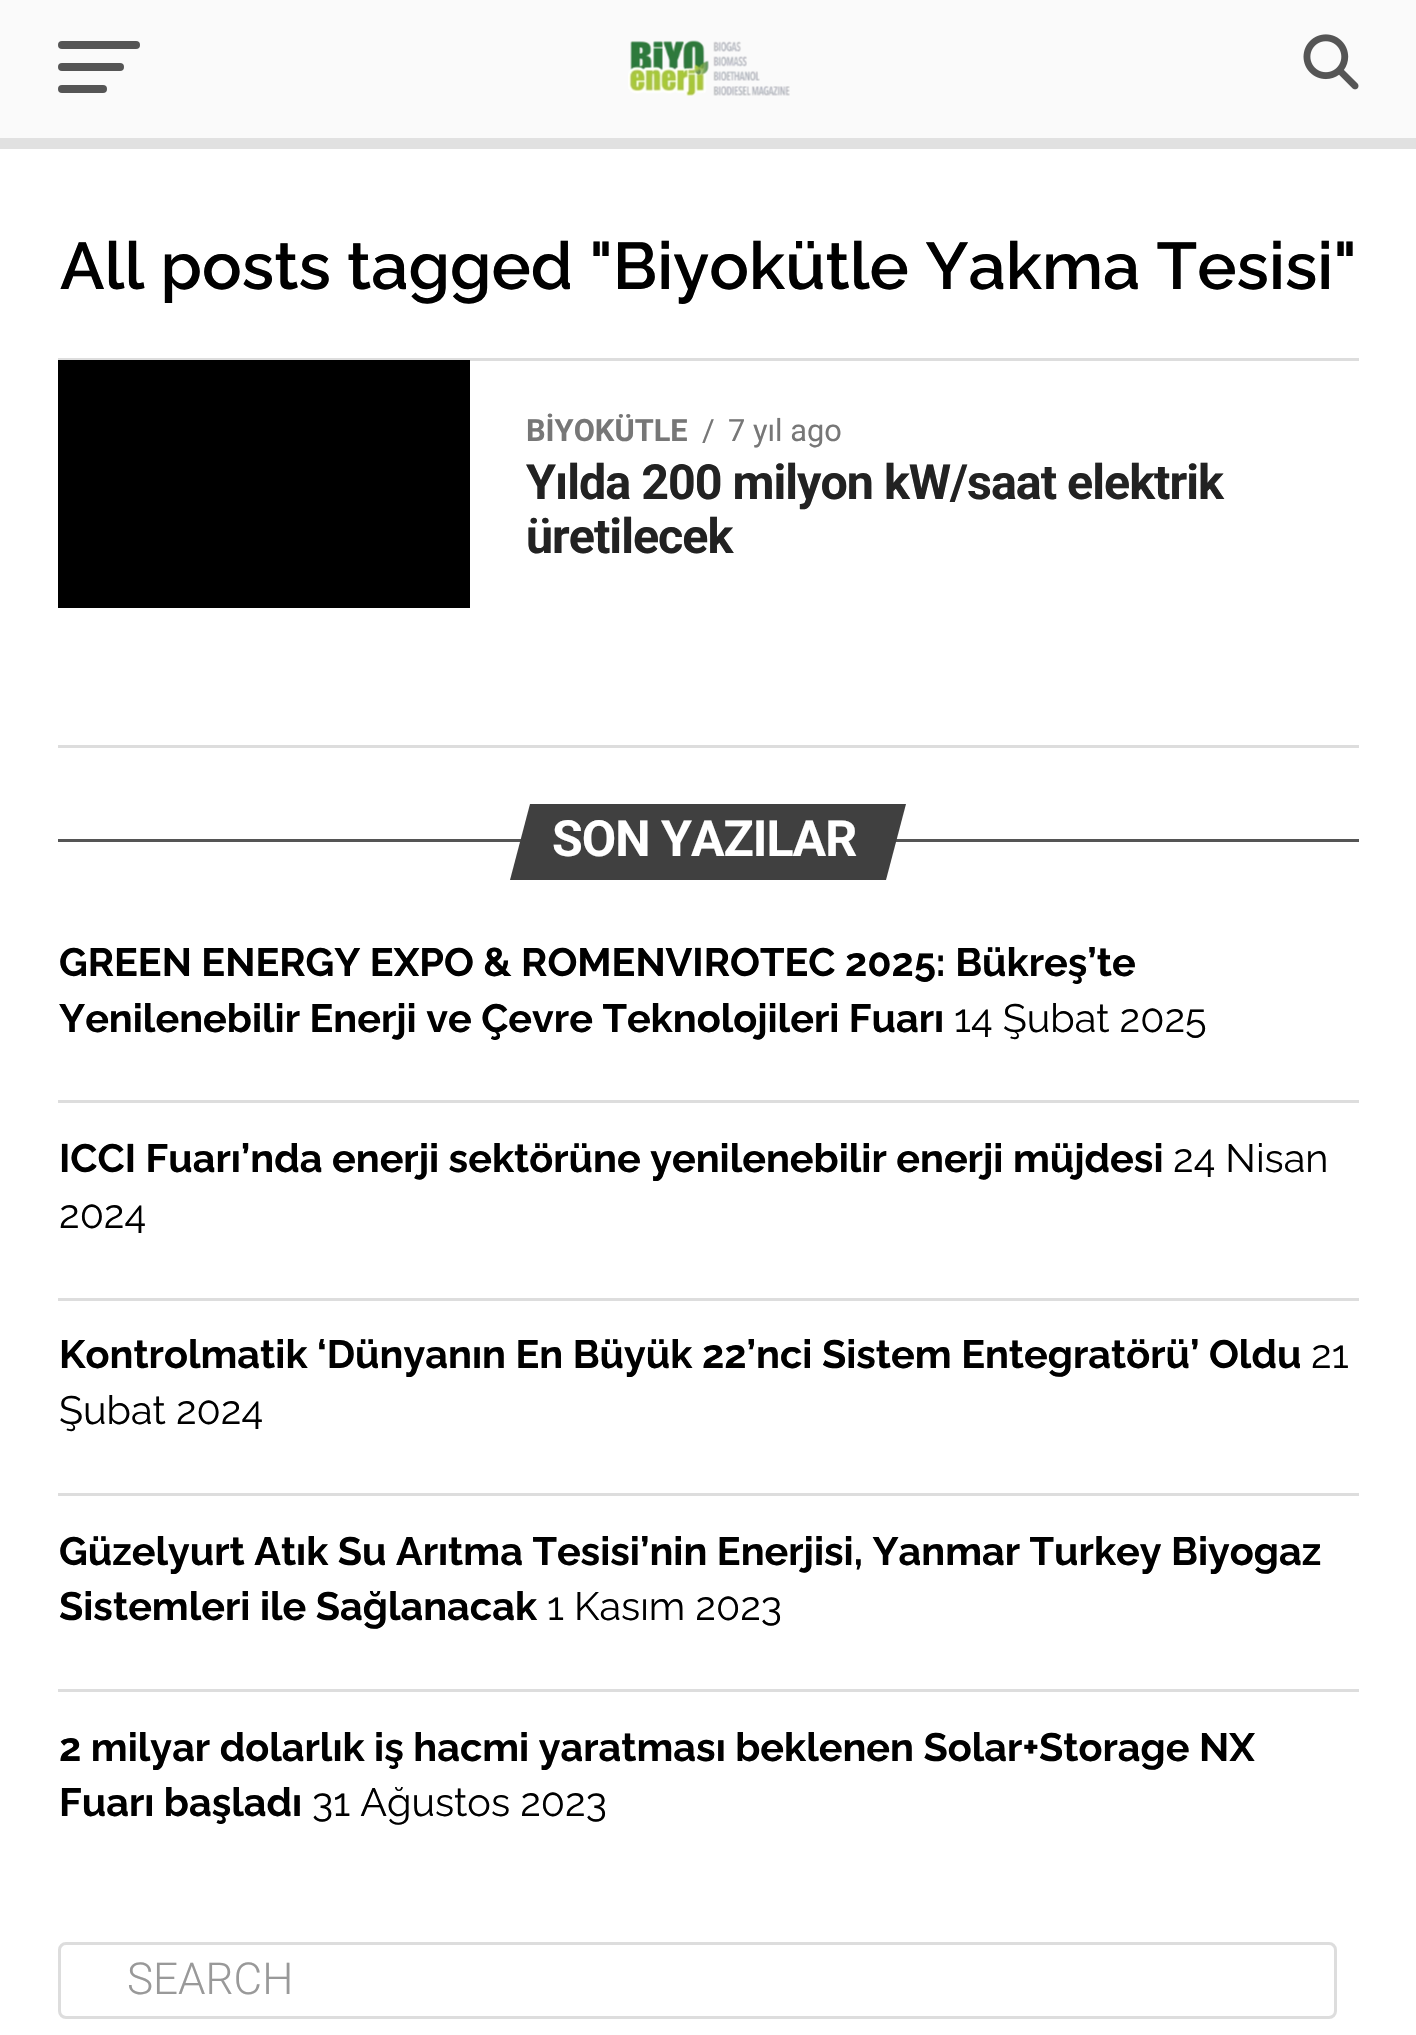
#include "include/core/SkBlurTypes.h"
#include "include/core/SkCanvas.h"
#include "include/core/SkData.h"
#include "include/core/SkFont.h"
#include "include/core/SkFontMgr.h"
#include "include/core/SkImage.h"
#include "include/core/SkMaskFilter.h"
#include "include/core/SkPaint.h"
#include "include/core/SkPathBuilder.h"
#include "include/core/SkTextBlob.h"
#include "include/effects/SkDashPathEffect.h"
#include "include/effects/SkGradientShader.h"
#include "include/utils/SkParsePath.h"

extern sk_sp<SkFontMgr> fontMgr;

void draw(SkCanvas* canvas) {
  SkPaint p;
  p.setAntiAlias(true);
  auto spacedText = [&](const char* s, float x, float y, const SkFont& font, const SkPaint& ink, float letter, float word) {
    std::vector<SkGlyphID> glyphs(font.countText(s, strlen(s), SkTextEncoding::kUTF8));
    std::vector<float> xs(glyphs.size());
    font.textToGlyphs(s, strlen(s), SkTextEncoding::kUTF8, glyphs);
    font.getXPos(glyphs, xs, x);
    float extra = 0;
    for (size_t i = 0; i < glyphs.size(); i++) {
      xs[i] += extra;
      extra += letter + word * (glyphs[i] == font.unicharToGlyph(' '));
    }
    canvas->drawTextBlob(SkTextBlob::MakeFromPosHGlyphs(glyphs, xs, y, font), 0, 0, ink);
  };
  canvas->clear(SK_ColorWHITE);
  p.setColor(SkColorSetRGB(250, 250, 250));
  canvas->drawRect(SkRect::MakeLTRB(0, 0, 1416, 138), p);
  p.setColor(SkColorSetRGB(225, 225, 225));
  canvas->drawRect(SkRect::MakeLTRB(0, 138, 1416, 149), p);
  p.setColor(SkColorSetRGB(85, 85, 85));
  canvas->drawRoundRect(SkRect::MakeLTRB(58, 41, 140, 49), 4, 4, p);
  canvas->drawRoundRect(SkRect::MakeLTRB(58, 63, 124, 71), 4, 4, p);
  canvas->drawRoundRect(SkRect::MakeLTRB(58, 85, 107, 93), 4, 4, p);
  canvas->drawImageRect(SkImages::DeferredFromEncodedData(SkData::MakeFromFileName("images/1.png")), SkRect::MakeLTRB(628, 40, 790, 96), SkSamplingOptions());
  canvas->drawImageRect(SkImages::DeferredFromEncodedData(SkData::MakeFromFileName("images/2.png")), SkRect::MakeLTRB(1303, 34, 1359, 90), SkSamplingOptions());
  p.setColor(SkColorSetRGB(221, 221, 221));
  canvas->drawRect(SkRect::MakeLTRB(58, 358, 1359, 361), p);
  p.setColor(SK_ColorBLACK);
  canvas->drawRect(SkRect::MakeLTRB(58, 360, 470, 608), p);
  p.setColor(SkColorSetRGB(221, 221, 221));
  canvas->drawRect(SkRect::MakeLTRB(58, 745, 1359, 748), p);
  p.setColor(SkColorSetRGB(85, 85, 85));
  canvas->drawRect(SkRect::MakeLTRB(58, 839, 1359, 842), p);
  p.setColor(SkColorSetRGB(64, 64, 64));
  canvas->drawPath(SkPathBuilder().moveTo(530, 804).lineTo(906, 804).lineTo(886, 880).lineTo(510, 880).close().detach(), p);
  p.setColor(SkColorSetRGB(221, 221, 221));
  canvas->drawRect(SkRect::MakeLTRB(58, 1100, 1359, 1103), p);
  canvas->drawRect(SkRect::MakeLTRB(58, 1298, 1359, 1301), p);
  canvas->drawRect(SkRect::MakeLTRB(58, 1493, 1359, 1496), p);
  canvas->drawRect(SkRect::MakeLTRB(58, 1689, 1359, 1692), p);
  p.setStyle(SkPaint::kStroke_Style);
  p.setStrokeWidth(3);
  canvas->drawRoundRect(SkRect::MakeLTRB(59.5f, 1943.5f, 1335.5f, 2017.5f), 6.5f, 6.5f, p);
  SkFont font1(fontMgr->matchFamilyStyle("Raleway", SkFontStyle(600, SkFontStyle::kNormal_Width, SkFontStyle::kUpright_Slant)), 66);
  font1.setSubpixel(true);
  p.setStyle(SkPaint::kFill_Style);
  p.setColor(SK_ColorBLACK);
  canvas->drawString("All posts tagged \"Biyokütle Yakma Tesisi\"", 60, 289, font1, p);
  SkFont font2(fontMgr->matchFamilyStyle("Roboto", SkFontStyle::Bold()), 30.75f);
  font2.setSubpixel(true);
  p.setColor(SkColorSetRGB(119, 119, 119));
  canvas->drawString("BİYOKÜTLE", 526, 441, font2, p);
  SkFont font3(fontMgr->matchFamilyStyle("Roboto", SkFontStyle::Normal()), 30.75f);
  font3.setSubpixel(true);
  canvas->drawString("/", 702, 441, font3, p);
  canvas->drawString("7 yıl ago", 728, 441, font3, p);
  SkFont font4(fontMgr->matchFamilyStyle("Roboto", SkFontStyle::Bold()), 48.4f);
  font4.setSubpixel(true);
  p.setColor(SkColorSetRGB(34, 34, 34));
  spacedText("Yılda 200 milyon kW/saat elektrik", 526, 499, font4, p, -1, 0);
  spacedText("üretilecek", 526, 553, font4, p, -1, 0);
  SkFont font5(fontMgr->matchFamilyStyle("Roboto", SkFontStyle::Bold()), 50);
  font5.setSubpixel(true);
  p.setColor(SK_ColorWHITE);
  spacedText("SON YAZILAR", 552, 856, font5, p, -1, 0);
  SkFont font6(fontMgr->matchFamilyStyle("Raleway", SkFontStyle::Bold()), 39.6f);
  font6.setSubpixel(true);
  p.setColor(SK_ColorBLACK);
  canvas->drawString("GREEN ENERGY EXPO & ROMENVIROTEC 2025: Bükreş’te", 59, 976, font6, p);
  canvas->drawString("Yenilenebilir Enerji ve Çevre Teknolojileri Fuarı", 59, 1032, font6, p);
  SkFont font7(fontMgr->matchFamilyStyle("Raleway", SkFontStyle::Normal()), 39.6f);
  font7.setSubpixel(true);
  canvas->drawString("14 Şubat 2025", 954, 1032, font7, p);
  canvas->drawString("ICCI Fuarı’nda enerji sektörüne yenilenebilir enerji müjdesi", 59, 1172, font6, p);
  canvas->drawString("24 Nisan", 1173, 1172, font7, p);
  canvas->drawString("2024", 59, 1228, font7, p);
  canvas->drawString("Kontrolmatik ‘Dünyanın En Büyük 22’nci Sistem Entegratörü’ Oldu", 59, 1368, font6, p);
  canvas->drawString("21", 1311, 1368, font7, p);
  canvas->drawString("Şubat 2024", 59, 1424, font7, p);
  canvas->drawString("Güzelyurt Atık Su Arıtma Tesisi’nin Enerjisi, Yanmar Turkey Biyogaz", 59, 1565, font6, p);
  canvas->drawString("Sistemleri ile Sağlanacak", 59, 1620, font6, p);
  canvas->drawString("1 Kasım 2023", 547, 1620, font7, p);
  canvas->drawString("2 milyar dolarlık iş hacmi yaratması beklenen Solar+Storage NX", 59, 1761, font6, p);
  canvas->drawString("Fuarı başladı", 59, 1816, font6, p);
  canvas->drawString("31 Ağustos 2023", 312, 1816, font7, p);
  SkFont font8(fontMgr->matchFamilyStyle("Roboto", SkFontStyle(300, SkFontStyle::kNormal_Width, SkFontStyle::kUpright_Slant)), 44);
  font8.setSubpixel(true);
  p.setColor(SkColorSetRGB(153, 153, 153));
  canvas->drawString("SEARCH", 127, 1994, font8, p);
}
